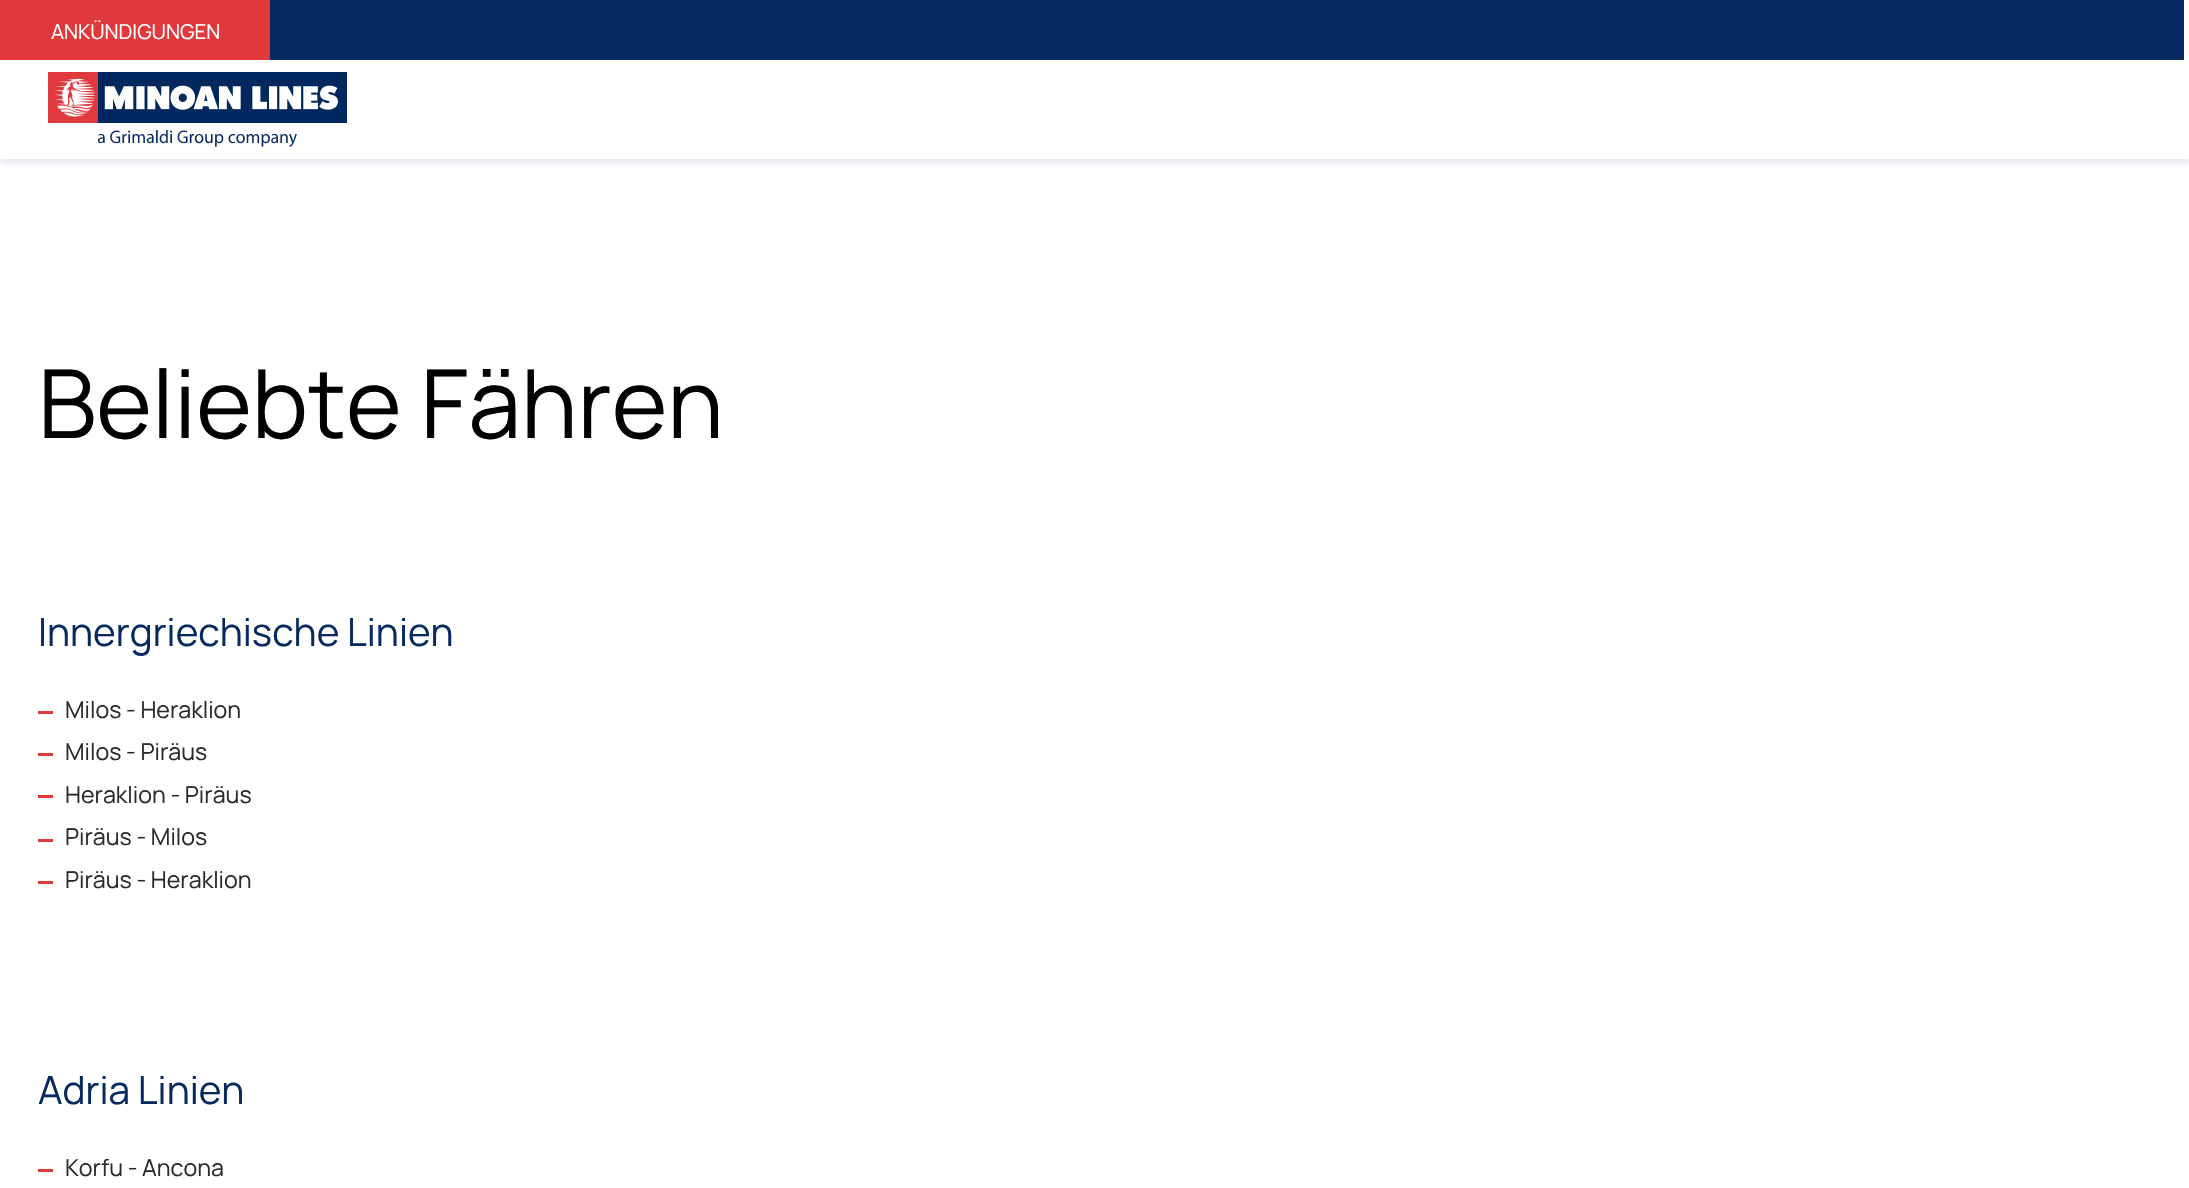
#include "include/core/SkBlurTypes.h"
#include "include/core/SkCanvas.h"
#include "include/core/SkData.h"
#include "include/core/SkFont.h"
#include "include/core/SkFontMgr.h"
#include "include/core/SkImage.h"
#include "include/core/SkMaskFilter.h"
#include "include/core/SkPaint.h"
#include "include/core/SkPathBuilder.h"
#include "include/core/SkTextBlob.h"
#include "include/effects/SkDashPathEffect.h"
#include "include/effects/SkGradientShader.h"
#include "include/utils/SkParsePath.h"

extern sk_sp<SkFontMgr> fontMgr;

void draw(SkCanvas* canvas) {
  SkPaint p;
  p.setAntiAlias(true);
  canvas->clear(SK_ColorWHITE);
  canvas->save();
  canvas->clipRect(SkRect::MakeLTRB(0, 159, 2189, 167));
  p.setColor(SkColorSetARGB(26, 6, 42, 96));
  p.setMaskFilter(SkMaskFilter::MakeBlur(kNormal_SkBlurStyle, 3));
  canvas->drawRect(SkRect::MakeLTRB(0, 65, 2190, 164), p);
  p.setMaskFilter(nullptr);
  canvas->restore();
  p.setColor(SkColorSetRGB(6, 42, 96));
  canvas->drawRect(SkRect::MakeLTRB(270, 0, 2184, 60), p);
  p.setColor(SkColorSetRGB(224, 56, 59));
  canvas->drawRect(SkRect::MakeLTRB(0, 0, 270, 60), p);
  canvas->drawImageRect(SkImages::DeferredFromEncodedData(SkData::MakeFromFileName("images/1.png")), SkRect::MakeLTRB(48, 72, 347, 147), SkSamplingOptions());
  canvas->drawRect(SkRect::MakeLTRB(38, 711, 53, 714), p);
  canvas->drawRect(SkRect::MakeLTRB(38, 753, 53, 756), p);
  canvas->drawRect(SkRect::MakeLTRB(38, 795, 53, 798), p);
  canvas->drawRect(SkRect::MakeLTRB(38, 839, 53, 842), p);
  canvas->drawRect(SkRect::MakeLTRB(38, 881, 53, 884), p);
  canvas->drawRect(SkRect::MakeLTRB(38, 1169, 53, 1172), p);
  SkFont font1(fontMgr->matchFamilyStyle("Manrope", SkFontStyle::Normal()), 20.5f);
  font1.setSubpixel(true);
  p.setColor(SK_ColorWHITE);
  canvas->drawString("ANKÜNDIGUNGEN", 51, 39, font1, p);
  SkFont font2(fontMgr->matchFamilyStyle("Manrope", SkFontStyle::Normal()), 95);
  font2.setSubpixel(true);
  p.setColor(SK_ColorBLACK);
  canvas->drawString("Beliebte Fähren", 38, 438, font2, p);
  SkFont font3(fontMgr->matchFamilyStyle("Manrope", SkFontStyle::Normal()), 38.75f);
  font3.setSubpixel(true);
  p.setColor(SkColorSetRGB(6, 42, 96));
  canvas->drawString("Innergriechische Linien", 38, 646, font3, p);
  SkFont font4(fontMgr->matchFamilyStyle("Manrope", SkFontStyle::Normal()), 23.25f);
  font4.setSubpixel(true);
  p.setColor(SkColorSetRGB(41, 42, 46));
  canvas->drawString("Milos - Heraklion", 65, 718, font4, p);
  canvas->drawString("Milos - Piräus", 65, 760, font4, p);
  canvas->drawString("Heraklion - Piräus", 65, 803, font4, p);
  canvas->drawString("Piräus - Milos", 65, 845, font4, p);
  canvas->drawString("Piräus - Heraklion", 65, 888, font4, p);
  p.setColor(SkColorSetRGB(6, 42, 96));
  canvas->drawString("Adria Linien", 38, 1104, font3, p);
  p.setColor(SkColorSetRGB(41, 42, 46));
  canvas->drawString("Korfu - Ancona", 65, 1176, font4, p);
}
